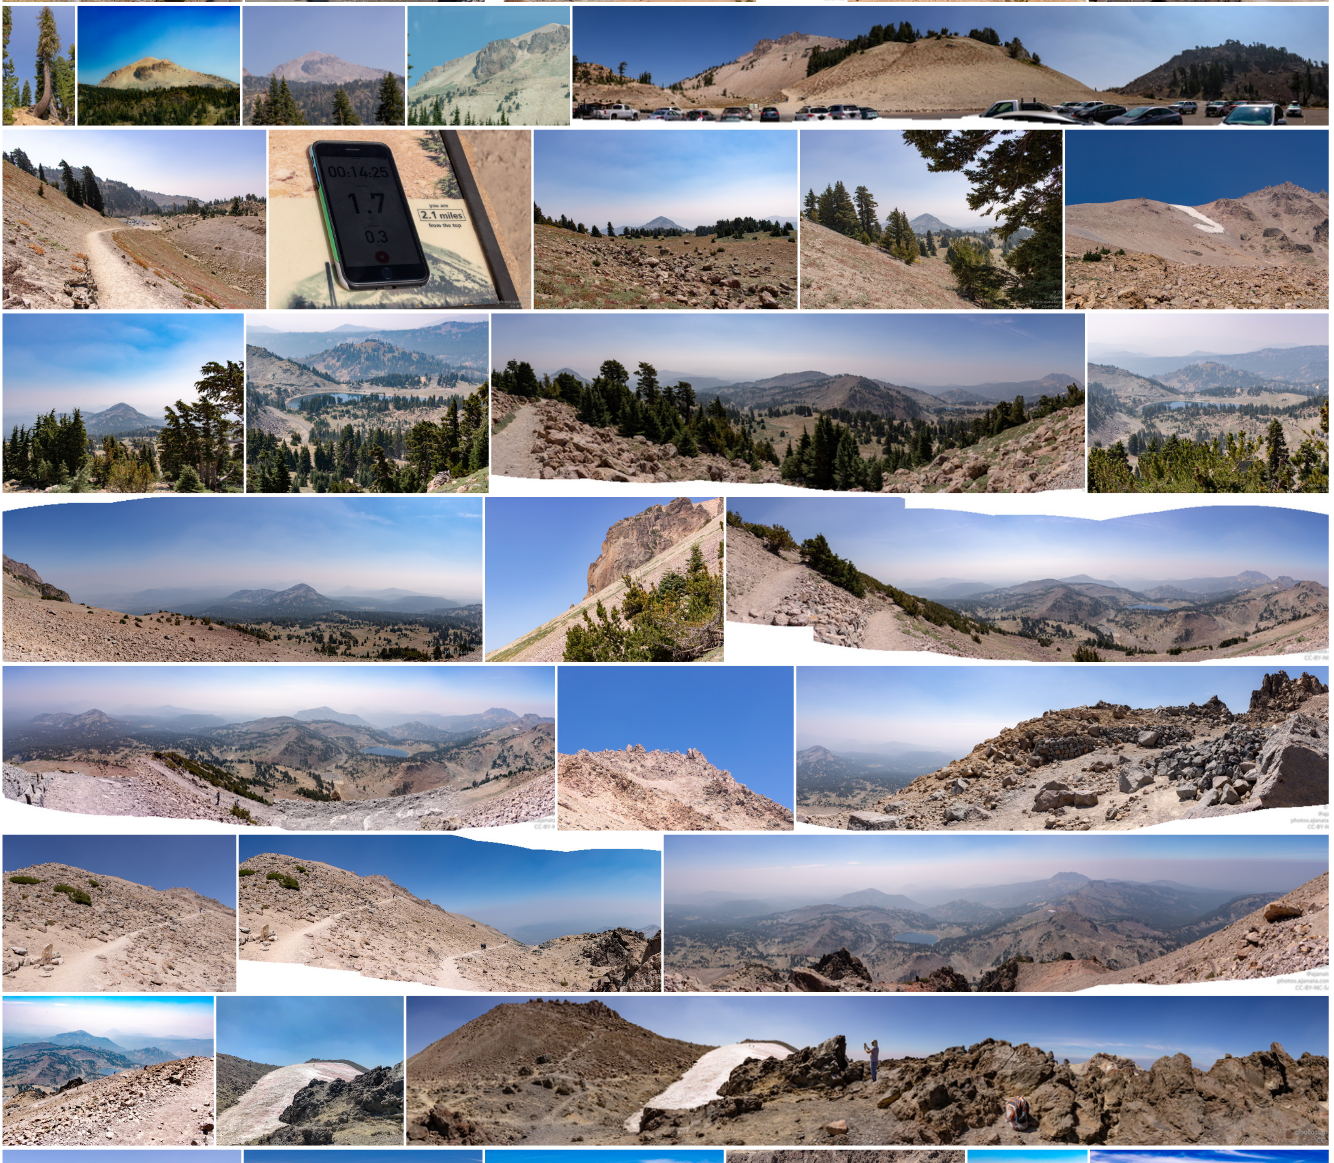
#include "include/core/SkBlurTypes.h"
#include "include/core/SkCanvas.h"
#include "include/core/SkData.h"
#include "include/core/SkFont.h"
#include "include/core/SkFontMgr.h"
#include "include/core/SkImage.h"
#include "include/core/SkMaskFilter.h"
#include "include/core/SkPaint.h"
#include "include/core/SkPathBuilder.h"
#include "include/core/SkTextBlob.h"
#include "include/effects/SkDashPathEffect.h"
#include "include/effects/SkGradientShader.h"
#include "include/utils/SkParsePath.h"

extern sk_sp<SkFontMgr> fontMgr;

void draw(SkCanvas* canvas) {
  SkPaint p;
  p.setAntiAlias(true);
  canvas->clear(SK_ColorWHITE);
  canvas->drawImageRect(SkImages::DeferredFromEncodedData(SkData::MakeFromFileName("images/1.png")), SkRect::MakeLTRB(2, 0, 243, 2), SkSamplingOptions());
  canvas->drawImageRect(SkImages::DeferredFromEncodedData(SkData::MakeFromFileName("images/2.png")), SkRect::MakeLTRB(245, 0, 485, 2), SkSamplingOptions());
  canvas->drawImageRect(SkImages::DeferredFromEncodedData(SkData::MakeFromFileName("images/3.png")), SkRect::MakeLTRB(503, 0, 845, 2), SkSamplingOptions());
  canvas->drawImageRect(SkImages::DeferredFromEncodedData(SkData::MakeFromFileName("images/4.png")), SkRect::MakeLTRB(847, 0, 1087, 2), SkSamplingOptions());
  canvas->drawImageRect(SkImages::DeferredFromEncodedData(SkData::MakeFromFileName("images/5.png")), SkRect::MakeLTRB(1088, 0, 1329, 2), SkSamplingOptions());
  canvas->drawImageRect(SkImages::DeferredFromEncodedData(SkData::MakeFromFileName("images/6.png")), SkRect::MakeLTRB(2, 5, 75, 126), SkSamplingOptions());
  canvas->drawImageRect(SkImages::DeferredFromEncodedData(SkData::MakeFromFileName("images/7.png")), SkRect::MakeLTRB(77, 5, 240, 126), SkSamplingOptions());
  canvas->drawImageRect(SkImages::DeferredFromEncodedData(SkData::MakeFromFileName("images/8.png")), SkRect::MakeLTRB(242, 5, 405, 126), SkSamplingOptions());
  canvas->drawImageRect(SkImages::DeferredFromEncodedData(SkData::MakeFromFileName("images/9.png")), SkRect::MakeLTRB(407, 5, 570, 126), SkSamplingOptions());
  canvas->drawImageRect(SkImages::DeferredFromEncodedData(SkData::MakeFromFileName("images/10.png")), SkRect::MakeLTRB(572, 5, 1329, 126), SkSamplingOptions());
  canvas->drawImageRect(SkImages::DeferredFromEncodedData(SkData::MakeFromFileName("images/11.png")), SkRect::MakeLTRB(2, 129, 267, 310), SkSamplingOptions());
  canvas->drawImageRect(SkImages::DeferredFromEncodedData(SkData::MakeFromFileName("images/12.png")), SkRect::MakeLTRB(268, 129, 532, 310), SkSamplingOptions());
  canvas->drawImageRect(SkImages::DeferredFromEncodedData(SkData::MakeFromFileName("images/13.png")), SkRect::MakeLTRB(533, 129, 798, 310), SkSamplingOptions());
  canvas->drawImageRect(SkImages::DeferredFromEncodedData(SkData::MakeFromFileName("images/14.png")), SkRect::MakeLTRB(800, 129, 1063, 310), SkSamplingOptions());
  canvas->drawImageRect(SkImages::DeferredFromEncodedData(SkData::MakeFromFileName("images/15.png")), SkRect::MakeLTRB(1065, 129, 1329, 310), SkSamplingOptions());
  canvas->drawImageRect(SkImages::DeferredFromEncodedData(SkData::MakeFromFileName("images/16.png")), SkRect::MakeLTRB(2, 313, 244, 494), SkSamplingOptions());
  canvas->drawImageRect(SkImages::DeferredFromEncodedData(SkData::MakeFromFileName("images/17.png")), SkRect::MakeLTRB(246, 313, 489, 494), SkSamplingOptions());
  canvas->drawImageRect(SkImages::DeferredFromEncodedData(SkData::MakeFromFileName("images/18.png")), SkRect::MakeLTRB(491, 313, 1085, 494), SkSamplingOptions());
  canvas->drawImageRect(SkImages::DeferredFromEncodedData(SkData::MakeFromFileName("images/19.png")), SkRect::MakeLTRB(1087, 313, 1329, 494), SkSamplingOptions());
  canvas->drawImageRect(SkImages::DeferredFromEncodedData(SkData::MakeFromFileName("images/20.png")), SkRect::MakeLTRB(2, 497, 483, 662), SkSamplingOptions());
  canvas->drawImageRect(SkImages::DeferredFromEncodedData(SkData::MakeFromFileName("images/21.png")), SkRect::MakeLTRB(485, 497, 724, 662), SkSamplingOptions());
  canvas->drawImageRect(SkImages::DeferredFromEncodedData(SkData::MakeFromFileName("images/22.png")), SkRect::MakeLTRB(726, 497, 1329, 662), SkSamplingOptions());
  canvas->drawImageRect(SkImages::DeferredFromEncodedData(SkData::MakeFromFileName("images/23.png")), SkRect::MakeLTRB(2, 665, 555, 831), SkSamplingOptions());
  canvas->drawImageRect(SkImages::DeferredFromEncodedData(SkData::MakeFromFileName("images/24.png")), SkRect::MakeLTRB(557, 665, 794, 831), SkSamplingOptions());
  canvas->drawImageRect(SkImages::DeferredFromEncodedData(SkData::MakeFromFileName("images/25.png")), SkRect::MakeLTRB(796, 665, 1329, 831), SkSamplingOptions());
  canvas->drawImageRect(SkImages::DeferredFromEncodedData(SkData::MakeFromFileName("images/26.png")), SkRect::MakeLTRB(2, 834, 237, 992), SkSamplingOptions());
  canvas->drawImageRect(SkImages::DeferredFromEncodedData(SkData::MakeFromFileName("images/27.png")), SkRect::MakeLTRB(238, 834, 662, 992), SkSamplingOptions());
  canvas->drawImageRect(SkImages::DeferredFromEncodedData(SkData::MakeFromFileName("images/28.png")), SkRect::MakeLTRB(663, 834, 1329, 992), SkSamplingOptions());
  canvas->drawImageRect(SkImages::DeferredFromEncodedData(SkData::MakeFromFileName("images/29.png")), SkRect::MakeLTRB(2, 995, 214, 1146), SkSamplingOptions());
  canvas->drawImageRect(SkImages::DeferredFromEncodedData(SkData::MakeFromFileName("images/30.png")), SkRect::MakeLTRB(216, 995, 404, 1146), SkSamplingOptions());
  canvas->drawImageRect(SkImages::DeferredFromEncodedData(SkData::MakeFromFileName("images/31.png")), SkRect::MakeLTRB(406, 995, 1329, 1146), SkSamplingOptions());
  canvas->drawImageRect(SkImages::DeferredFromEncodedData(SkData::MakeFromFileName("images/32.png")), SkRect::MakeLTRB(2, 1149, 242, 1163), SkSamplingOptions());
  canvas->drawImageRect(SkImages::DeferredFromEncodedData(SkData::MakeFromFileName("images/33.png")), SkRect::MakeLTRB(243, 1149, 483, 1163), SkSamplingOptions());
  canvas->drawImageRect(SkImages::DeferredFromEncodedData(SkData::MakeFromFileName("images/34.png")), SkRect::MakeLTRB(485, 1149, 724, 1163), SkSamplingOptions());
  canvas->drawImageRect(SkImages::DeferredFromEncodedData(SkData::MakeFromFileName("images/35.png")), SkRect::MakeLTRB(726, 1149, 965, 1163), SkSamplingOptions());
  canvas->drawImageRect(SkImages::DeferredFromEncodedData(SkData::MakeFromFileName("images/36.png")), SkRect::MakeLTRB(967, 1149, 1088, 1163), SkSamplingOptions());
  canvas->drawImageRect(SkImages::DeferredFromEncodedData(SkData::MakeFromFileName("images/37.png")), SkRect::MakeLTRB(1090, 1149, 1329, 1163), SkSamplingOptions());
}
